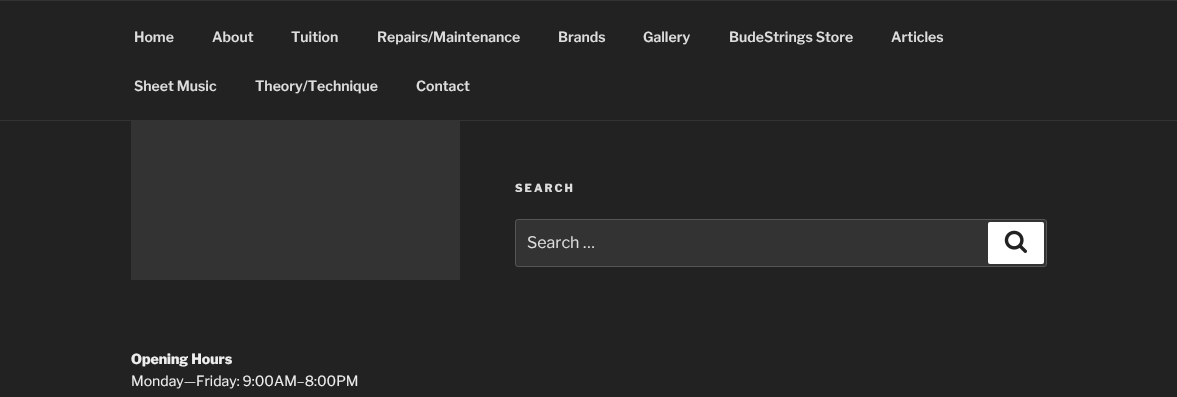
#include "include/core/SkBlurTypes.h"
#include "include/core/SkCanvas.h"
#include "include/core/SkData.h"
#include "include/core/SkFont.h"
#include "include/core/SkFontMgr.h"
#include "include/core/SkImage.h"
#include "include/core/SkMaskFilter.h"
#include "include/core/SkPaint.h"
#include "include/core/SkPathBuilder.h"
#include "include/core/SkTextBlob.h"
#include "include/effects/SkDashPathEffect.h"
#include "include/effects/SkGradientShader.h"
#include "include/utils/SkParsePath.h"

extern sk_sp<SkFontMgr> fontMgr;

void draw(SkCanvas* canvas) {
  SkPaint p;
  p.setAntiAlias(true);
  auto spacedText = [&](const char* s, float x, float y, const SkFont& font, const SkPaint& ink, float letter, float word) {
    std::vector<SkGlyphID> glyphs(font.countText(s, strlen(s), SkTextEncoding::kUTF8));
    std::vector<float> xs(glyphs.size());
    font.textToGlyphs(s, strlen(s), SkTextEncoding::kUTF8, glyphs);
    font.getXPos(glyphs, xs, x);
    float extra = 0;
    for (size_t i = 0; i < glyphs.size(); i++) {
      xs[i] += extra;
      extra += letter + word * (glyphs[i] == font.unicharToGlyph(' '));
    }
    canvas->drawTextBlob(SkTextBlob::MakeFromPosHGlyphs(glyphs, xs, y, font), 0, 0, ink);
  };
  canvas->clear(SkColorSetRGB(34, 34, 34));
  p.setColor(SkColorSetRGB(51, 51, 51));
  canvas->drawRect(SkRect::MakeLTRB(0, 0, 1177, 1), p);
  canvas->drawRect(SkRect::MakeLTRB(0, 120, 1177, 121), p);
  canvas->drawRoundRect(SkRect::MakeLTRB(515.5f, 219.5f, 1046.5f, 266.5f), 2.5f, 2.5f, p);
  p.setStyle(SkPaint::kStroke_Style);
  p.setStrokeWidth(1);
  p.setColor(SkColorSetRGB(85, 85, 85));
  canvas->drawRoundRect(SkRect::MakeLTRB(515.5f, 219.5f, 1046.5f, 266.5f), 2.5f, 2.5f, p);
  p.setStyle(SkPaint::kFill_Style);
  p.setColor(SK_ColorWHITE);
  canvas->drawRoundRect(SkRect::MakeLTRB(988, 222, 1044, 264), 2, 2, p);
  canvas->drawImageRect(SkImages::DeferredFromEncodedData(SkData::MakeFromFileName("images/1.png")), SkRect::MakeLTRB(1004, 230, 1027, 253), SkSamplingOptions());
  p.setColor(SkColorSetRGB(51, 51, 51));
  canvas->drawRect(SkRect::MakeLTRB(131, 121, 460, 280), p);
  SkFont font1(fontMgr->matchFamilyStyle("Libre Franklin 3", SkFontStyle(100, SkFontStyle::kNormal_Width, SkFontStyle::kUpright_Slant)), 14);
  font1.setSubpixel(true);
  p.setColor(SkColorSetRGB(221, 221, 221));
  canvas->drawString("Home", 134, 42, font1, p);
  canvas->drawString("About", 212, 42, font1, p);
  canvas->drawString("Tuition", 291, 42, font1, p);
  canvas->drawString("Repairs/Maintenance", 377, 42, font1, p);
  canvas->drawString("Brands", 558, 42, font1, p);
  canvas->drawString("Gallery", 643, 42, font1, p);
  canvas->drawString("BudeStrings Store", 729, 42, font1, p);
  canvas->drawString("Articles", 891, 42, font1, p);
  canvas->drawString("Sheet Music", 134, 91, font1, p);
  canvas->drawString("Theory/Technique", 255, 91, font1, p);
  canvas->drawString("Contact", 416, 91, font1, p);
  SkFont font2(fontMgr->matchFamilyStyle("Libre Franklin", SkFontStyle(100, SkFontStyle::kNormal_Width, SkFontStyle::kUpright_Slant)), 11);
  font2.setSubpixel(true);
  spacedText("SEARCH", 515, 192, font2, p, 2, 0);
  SkFont font3(fontMgr->matchFamilyStyle("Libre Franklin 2", SkFontStyle(100, SkFontStyle::kNormal_Width, SkFontStyle::kUpright_Slant)), 16);
  font3.setSubpixel(true);
  canvas->drawString("Search …", 527, 248, font3, p);
  SkFont font4(fontMgr->matchFamilyStyle("Libre Franklin", SkFontStyle(100, SkFontStyle::kNormal_Width, SkFontStyle::kUpright_Slant)), 14);
  font4.setSubpixel(true);
  p.setColor(SkColorSetRGB(238, 238, 238));
  canvas->drawString("Opening Hours", 131, 364, font4, p);
  SkFont font5(fontMgr->matchFamilyStyle("Libre Franklin 2", SkFontStyle(100, SkFontStyle::kNormal_Width, SkFontStyle::kUpright_Slant)), 14);
  font5.setSubpixel(true);
  canvas->drawString("Monday—Friday: 9:00AM–8:00PM", 131, 386, font5, p);
}
